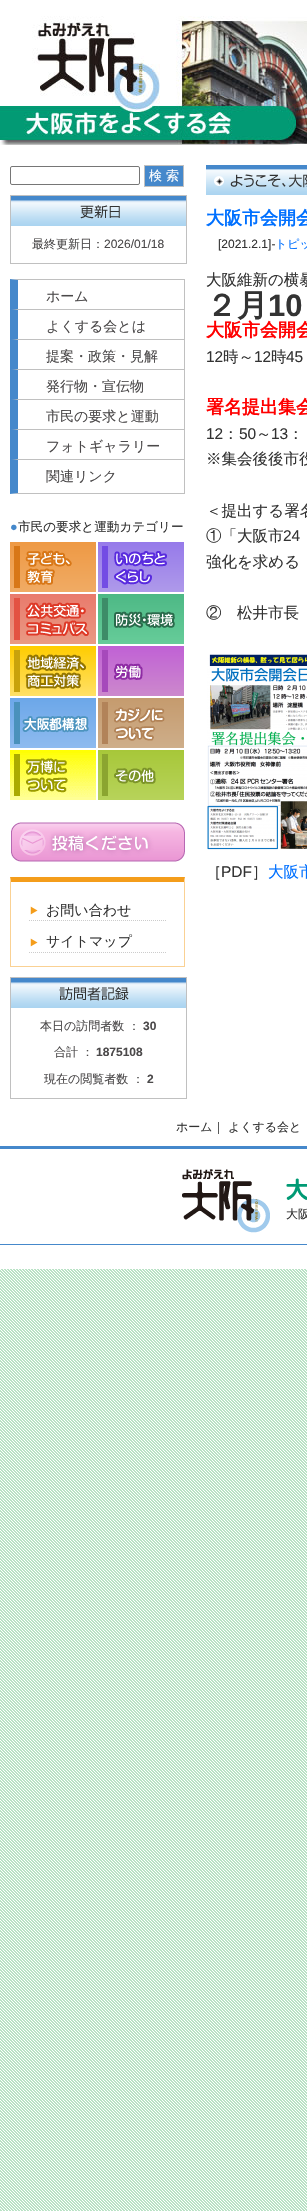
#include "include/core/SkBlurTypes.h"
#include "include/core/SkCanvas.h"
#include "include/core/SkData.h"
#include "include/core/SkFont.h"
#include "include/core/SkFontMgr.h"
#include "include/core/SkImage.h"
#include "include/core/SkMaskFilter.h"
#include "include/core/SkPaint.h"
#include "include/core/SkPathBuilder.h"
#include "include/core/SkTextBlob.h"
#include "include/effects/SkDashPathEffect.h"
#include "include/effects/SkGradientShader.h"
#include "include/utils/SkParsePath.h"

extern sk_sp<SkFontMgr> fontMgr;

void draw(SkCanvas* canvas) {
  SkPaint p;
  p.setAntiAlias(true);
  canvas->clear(SK_ColorWHITE);
  canvas->drawImageRect(SkImages::DeferredFromEncodedData(SkData::MakeFromFileName("images/1.png")), SkRect::MakeLTRB(0, 1269, 307, 2211), SkSamplingOptions());
  canvas->drawImageRect(SkImages::DeferredFromEncodedData(SkData::MakeFromFileName("images/2.png")), SkRect::MakeLTRB(0, 16, 307, 145), SkSamplingOptions());
  p.setStyle(SkPaint::kStroke_Style);
  p.setStrokeWidth(1);
  p.setColor(SkColorSetRGB(118, 118, 118));
  canvas->drawRoundRect(SkRect::MakeLTRB(10.5f, 166.5f, 139.5f, 184.5f), 1.5f, 1.5f, p);
  p.setStyle(SkPaint::kFill_Style);
  p.setColor(SkColorSetRGB(69, 136, 203));
  canvas->drawRect(SkRect::MakeLTRB(144.5f, 165.5f, 183.5f, 186.5f), p);
  p.setStyle(SkPaint::kStroke_Style);
  p.setColor(SkColorSetRGB(192, 192, 192));
  canvas->drawRect(SkRect::MakeLTRB(144.5f, 165.5f, 183.5f, 186.5f), p);
  canvas->drawImageRect(SkImages::DeferredFromEncodedData(SkData::MakeFromFileName("images/3.png")), SkRect::MakeLTRB(11, 196, 186, 226), SkSamplingOptions());
  canvas->drawRect(SkRect::MakeLTRB(10.5f, 195.5f, 186.5f, 263.5f), p);
  p.setStyle(SkPaint::kFill_Style);
  canvas->drawPath(SkPathBuilder().moveTo(10, 279).lineTo(185, 279).lineTo(184, 280).lineTo(18, 280).close().detach(), p);
  canvas->drawRect(SkRect::MakeLTRB(184, 279, 185, 314), p);
  p.setColor(SkColorSetRGB(69, 136, 203));
  canvas->drawPath(SkPathBuilder().moveTo(10, 314).lineTo(10, 279).lineTo(18, 280).lineTo(18, 313).close().detach(), p);
  p.setColor(SkColorSetRGB(192, 192, 192));
  canvas->drawPath(SkPathBuilder().moveTo(10, 309).lineTo(185, 309).lineTo(184, 310).lineTo(18, 310).close().detach(), p);
  canvas->drawRect(SkRect::MakeLTRB(184, 309, 185, 344), p);
  p.setColor(SkColorSetRGB(69, 136, 203));
  canvas->drawPath(SkPathBuilder().moveTo(10, 344).lineTo(10, 309).lineTo(18, 310).lineTo(18, 343).close().detach(), p);
  p.setColor(SkColorSetRGB(192, 192, 192));
  canvas->drawPath(SkPathBuilder().moveTo(10, 339).lineTo(185, 339).lineTo(184, 340).lineTo(18, 340).close().detach(), p);
  canvas->drawRect(SkRect::MakeLTRB(184, 339, 185, 374), p);
  p.setColor(SkColorSetRGB(69, 136, 203));
  canvas->drawPath(SkPathBuilder().moveTo(10, 374).lineTo(10, 339).lineTo(18, 340).lineTo(18, 373).close().detach(), p);
  p.setColor(SkColorSetRGB(192, 192, 192));
  canvas->drawPath(SkPathBuilder().moveTo(10, 369).lineTo(185, 369).lineTo(184, 370).lineTo(18, 370).close().detach(), p);
  canvas->drawRect(SkRect::MakeLTRB(184, 369, 185, 404), p);
  p.setColor(SkColorSetRGB(69, 136, 203));
  canvas->drawPath(SkPathBuilder().moveTo(10, 404).lineTo(10, 369).lineTo(18, 370).lineTo(18, 403).close().detach(), p);
  p.setColor(SkColorSetRGB(192, 192, 192));
  canvas->drawPath(SkPathBuilder().moveTo(10, 399).lineTo(185, 399).lineTo(184, 400).lineTo(18, 400).close().detach(), p);
  canvas->drawRect(SkRect::MakeLTRB(184, 399, 185, 434), p);
  p.setColor(SkColorSetRGB(69, 136, 203));
  canvas->drawPath(SkPathBuilder().moveTo(10, 434).lineTo(10, 399).lineTo(18, 400).lineTo(18, 433).close().detach(), p);
  p.setColor(SkColorSetRGB(192, 192, 192));
  canvas->drawPath(SkPathBuilder().moveTo(10, 429).lineTo(185, 429).lineTo(184, 430).lineTo(18, 430).close().detach(), p);
  canvas->drawRect(SkRect::MakeLTRB(184, 429, 185, 464), p);
  p.setColor(SkColorSetRGB(69, 136, 203));
  canvas->drawPath(SkPathBuilder().moveTo(10, 464).lineTo(10, 429).lineTo(18, 430).lineTo(18, 463).close().detach(), p);
  p.setColor(SkColorSetRGB(192, 192, 192));
  canvas->drawPath(SkPathBuilder().moveTo(10, 459).lineTo(185, 459).lineTo(184, 460).lineTo(18, 460).close().detach(), p);
  canvas->drawRect(SkRect::MakeLTRB(184, 459, 185, 494), p);
  canvas->drawPath(SkPathBuilder().moveTo(185, 494).lineTo(10, 494).lineTo(18, 493).lineTo(184, 493).close().detach(), p);
  p.setColor(SkColorSetRGB(69, 136, 203));
  canvas->drawPath(SkPathBuilder().moveTo(10, 494).lineTo(10, 459).lineTo(18, 460).lineTo(18, 493).close().detach(), p);
  canvas->drawImageRect(SkImages::DeferredFromEncodedData(SkData::MakeFromFileName("images/4.png")), SkRect::MakeLTRB(10, 542, 96, 592), SkSamplingOptions());
  canvas->drawImageRect(SkImages::DeferredFromEncodedData(SkData::MakeFromFileName("images/5.png")), SkRect::MakeLTRB(98, 542, 184, 592), SkSamplingOptions());
  canvas->drawImageRect(SkImages::DeferredFromEncodedData(SkData::MakeFromFileName("images/6.png")), SkRect::MakeLTRB(10, 594, 96, 644), SkSamplingOptions());
  canvas->drawImageRect(SkImages::DeferredFromEncodedData(SkData::MakeFromFileName("images/7.png")), SkRect::MakeLTRB(98, 594, 184, 644), SkSamplingOptions());
  canvas->drawImageRect(SkImages::DeferredFromEncodedData(SkData::MakeFromFileName("images/8.png")), SkRect::MakeLTRB(10, 646, 96, 696), SkSamplingOptions());
  canvas->drawImageRect(SkImages::DeferredFromEncodedData(SkData::MakeFromFileName("images/9.png")), SkRect::MakeLTRB(98, 646, 184, 696), SkSamplingOptions());
  canvas->drawImageRect(SkImages::DeferredFromEncodedData(SkData::MakeFromFileName("images/10.png")), SkRect::MakeLTRB(10, 698, 96, 748), SkSamplingOptions());
  canvas->drawImageRect(SkImages::DeferredFromEncodedData(SkData::MakeFromFileName("images/11.png")), SkRect::MakeLTRB(98, 698, 184, 748), SkSamplingOptions());
  canvas->drawImageRect(SkImages::DeferredFromEncodedData(SkData::MakeFromFileName("images/12.png")), SkRect::MakeLTRB(10, 750, 96, 800), SkSamplingOptions());
  canvas->drawImageRect(SkImages::DeferredFromEncodedData(SkData::MakeFromFileName("images/13.png")), SkRect::MakeLTRB(98, 750, 184, 800), SkSamplingOptions());
  canvas->drawImageRect(SkImages::DeferredFromEncodedData(SkData::MakeFromFileName("images/14.png")), SkRect::MakeLTRB(11, 822, 185, 862), SkSamplingOptions());
  p.setColor(SkColorSetRGB(244, 157, 27));
  canvas->drawPath(SkPathBuilder().moveTo(10, 877).lineTo(185, 877).lineTo(184, 882).lineTo(11, 882).close().detach(), p);
  p.setColor(SkColorSetRGB(250, 209, 147));
  canvas->drawPath(SkPathBuilder().moveTo(185, 877).lineTo(185, 967).lineTo(184, 966).lineTo(184, 882).close().detach(), p);
  canvas->drawRect(SkRect::MakeLTRB(10, 966, 185, 967), p);
  canvas->drawPath(SkPathBuilder().moveTo(10, 967).lineTo(10, 877).lineTo(11, 882).lineTo(11, 966).close().detach(), p);
  canvas->drawImageRect(SkImages::DeferredFromEncodedData(SkData::MakeFromFileName("images/15.png")), SkRect::MakeLTRB(30, 906, 38, 915), SkSamplingOptions());
  p.setStyle(SkPaint::kStroke_Style);
  p.setColor(SkColorSetRGB(204, 204, 204));
  p.setPathEffect(SkDashPathEffect::Make({{1, 1}}, 0));
  canvas->drawPath(SkPathBuilder().moveTo(29, 920.5f).lineTo(166, 920.5f).detach(), p);
  p.setPathEffect(nullptr);
  canvas->drawImageRect(SkImages::DeferredFromEncodedData(SkData::MakeFromFileName("images/15.png")), SkRect::MakeLTRB(30, 938, 38, 947), SkSamplingOptions());
  p.setPathEffect(SkDashPathEffect::Make({{1, 1}}, 0));
  canvas->drawPath(SkPathBuilder().moveTo(29, 952.5f).lineTo(166, 952.5f).detach(), p);
  p.setPathEffect(nullptr);
  canvas->drawImageRect(SkImages::DeferredFromEncodedData(SkData::MakeFromFileName("images/16.png")), SkRect::MakeLTRB(11, 978, 186, 1008), SkSamplingOptions());
  p.setColor(SkColorSetRGB(192, 192, 192));
  canvas->drawRect(SkRect::MakeLTRB(10.5f, 977.5f, 186.5f, 1098.5f), p);
  canvas->drawImageRect(SkImages::DeferredFromEncodedData(SkData::MakeFromFileName("images/17.png")), SkRect::MakeLTRB(206, 165, 307, 195), SkSamplingOptions());
  canvas->drawImageRect(SkImages::DeferredFromEncodedData(SkData::MakeFromFileName("images/18.png")), SkRect::MakeLTRB(207, 654, 307, 850), SkSamplingOptions());
  p.setStyle(SkPaint::kFill_Style);
  p.setColor(SkColorSetRGB(69, 136, 203));
  canvas->drawRect(SkRect::MakeLTRB(0, 1146, 307, 1149), p);
  canvas->drawImageRect(SkImages::DeferredFromEncodedData(SkData::MakeFromFileName("images/19.png")), SkRect::MakeLTRB(182, 1169, 307, 1233), SkSamplingOptions());
  canvas->drawRect(SkRect::MakeLTRB(0, 1244, 307, 1245), p);
  SkFont font1(fontMgr->matchFamilyStyle("WenQuanYi Zen Hei", SkFontStyle(500, SkFontStyle::kNormal_Width, SkFontStyle::kUpright_Slant)), 13);
  font1.setSubpixel(true);
  p.setColor(SK_ColorWHITE);
  canvas->drawString("検 索", 149, 180, font1, p);
  SkFont font2(fontMgr->matchFamilyStyle("WenQuanYi Zen Hei", SkFontStyle(500, SkFontStyle::kNormal_Width, SkFontStyle::kUpright_Slant)), 12);
  font2.setSubpixel(true);
  p.setColor(SkColorSetRGB(75, 73, 74));
  canvas->drawString("最終更新日：", 32, 248, font2, p);
  SkFont font3(fontMgr->matchFamilyStyle("Liberation Sans", SkFontStyle::Normal()), 12);
  font3.setSubpixel(true);
  canvas->drawString("2026/01/18", 104, 248, font3, p);
  SkFont font4(fontMgr->matchFamilyStyle("WenQuanYi Zen Hei", SkFontStyle(500, SkFontStyle::kNormal_Width, SkFontStyle::kUpright_Slant)), 14);
  font4.setSubpixel(true);
  canvas->drawString("ホーム", 46, 301, font4, p);
  canvas->drawString("よくする会とは", 46, 331, font4, p);
  canvas->drawString("提案・政策・見解", 46, 361, font4, p);
  canvas->drawString("発行物・宣伝物", 46, 391, font4, p);
  canvas->drawString("市民の要求と運動", 46, 421, font4, p);
  canvas->drawString("フォトギャラリー", 46, 451, font4, p);
  canvas->drawString("関連リンク", 46, 481, font4, p);
  SkFont font5(fontMgr->matchFamilyStyle("Liberation Sans", SkFontStyle::Normal()), 12.6f);
  font5.setSubpixel(true);
  p.setColor(SkColorSetRGB(69, 136, 203));
  canvas->drawString("●", 10, 531, font5, p);
  SkFont font6(fontMgr->matchFamilyStyle("WenQuanYi Zen Hei", SkFontStyle(500, SkFontStyle::kNormal_Width, SkFontStyle::kUpright_Slant)), 12.6f);
  font6.setSubpixel(true);
  p.setColor(SkColorSetRGB(51, 51, 51));
  canvas->drawString("市民の要求と運動カテゴリー", 18, 531, font6, p);
  canvas->drawString("お問い合わせ", 46, 915, font4, p);
  canvas->drawString("サイトマップ", 46, 946, font4, p);
  p.setColor(SkColorSetRGB(75, 73, 74));
  canvas->drawString("本日の訪問者数 ：", 40, 1030, font2, p);
  SkFont font7(fontMgr->matchFamilyStyle("Liberation Sans", SkFontStyle::Bold()), 12);
  font7.setSubpixel(true);
  canvas->drawString("30", 143, 1030, font7, p);
  canvas->drawString("合計 ：", 54, 1056, font2, p);
  canvas->drawString("1875108", 96, 1056, font7, p);
  canvas->drawString("現在の閲覧者数 ：", 44, 1083, font2, p);
  canvas->drawString("2", 147, 1083, font7, p);
  SkFont font8(fontMgr->matchFamilyStyle("WenQuanYi Zen Hei", SkFontStyle::Bold()), 18);
  font8.setSubpixel(true);
  p.setColor(SkColorSetRGB(0, 112, 255));
  canvas->drawString("大阪市会開会", 206, 224, font8, p);
  p.setColor(SkColorSetRGB(51, 51, 51));
  canvas->drawString("[2021.2.1]-", 218, 248, font3, p);
  p.setColor(SkColorSetRGB(0, 112, 255));
  canvas->drawString("トピッ", 275, 248, font2, p);
  SkFont font9(fontMgr->matchFamilyStyle("WenQuanYi Zen Hei", SkFontStyle(500, SkFontStyle::kNormal_Width, SkFontStyle::kUpright_Slant)), 15.5f);
  font9.setSubpixel(true);
  p.setColor(SkColorSetRGB(51, 51, 51));
  canvas->drawString("大阪維新の横暴", 206, 285, font9, p);
  SkFont font10(fontMgr->matchFamilyStyle("WenQuanYi Zen Hei", SkFontStyle::Bold()), 31);
  font10.setSubpixel(true);
  canvas->drawString("２月", 206, 316, font10, p);
  SkFont font11(fontMgr->matchFamilyStyle("Liberation Sans", SkFontStyle::Bold()), 31);
  font11.setSubpixel(true);
  canvas->drawString("10", 268, 316, font11, p);
  p.setColor(SkColorSetRGB(255, 0, 0));
  canvas->drawString("大阪市会開会", 206, 336, font8, p);
  SkFont font12(fontMgr->matchFamilyStyle("Liberation Sans", SkFontStyle::Normal()), 15.5f);
  font12.setSubpixel(true);
  p.setColor(SkColorSetRGB(51, 51, 51));
  canvas->drawString("12", 206, 362, font12, p);
  canvas->drawString("時～", 223, 362, font9, p);
  canvas->drawString("12", 254, 362, font12, p);
  canvas->drawString("時", 271, 362, font9, p);
  canvas->drawString("45", 286, 362, font12, p);
  p.setColor(SkColorSetRGB(255, 0, 0));
  canvas->drawString("署名提出集会", 206, 413, font8, p);
  p.setColor(SkColorSetRGB(51, 51, 51));
  canvas->drawString("12", 206, 439, font12, p);
  canvas->drawString("：", 223, 439, font9, p);
  canvas->drawString("50", 239, 439, font12, p);
  canvas->drawString("～", 256, 439, font9, p);
  canvas->drawString("13", 271, 439, font12, p);
  canvas->drawString("：", 288, 439, font9, p);
  canvas->drawString("※集会後後市役", 206, 464, font9, p);
  canvas->drawString("＜提出する署名", 206, 516, font9, p);
  canvas->drawString("①「大阪市", 206, 541, font9, p);
  canvas->drawString("24", 283, 541, font12, p);
  canvas->drawString("強化を求める", 206, 567, font9, p);
  canvas->drawString("②　松井市長", 206, 618, font9, p);
  canvas->drawString("［", 206, 877, font9, p);
  canvas->drawString("PDF", 221, 877, font12, p);
  canvas->drawString("］", 252, 877, font9, p);
  p.setColor(SkColorSetRGB(0, 112, 255));
  canvas->drawString("大阪市", 268, 877, font9, p);
  p.setColor(SkColorSetRGB(51, 51, 51));
  canvas->drawString("ホーム｜ よくする会と", 176, 1131, font2, p);
  canvas->drawString("大阪", 286, 1218, font2, p);
}
